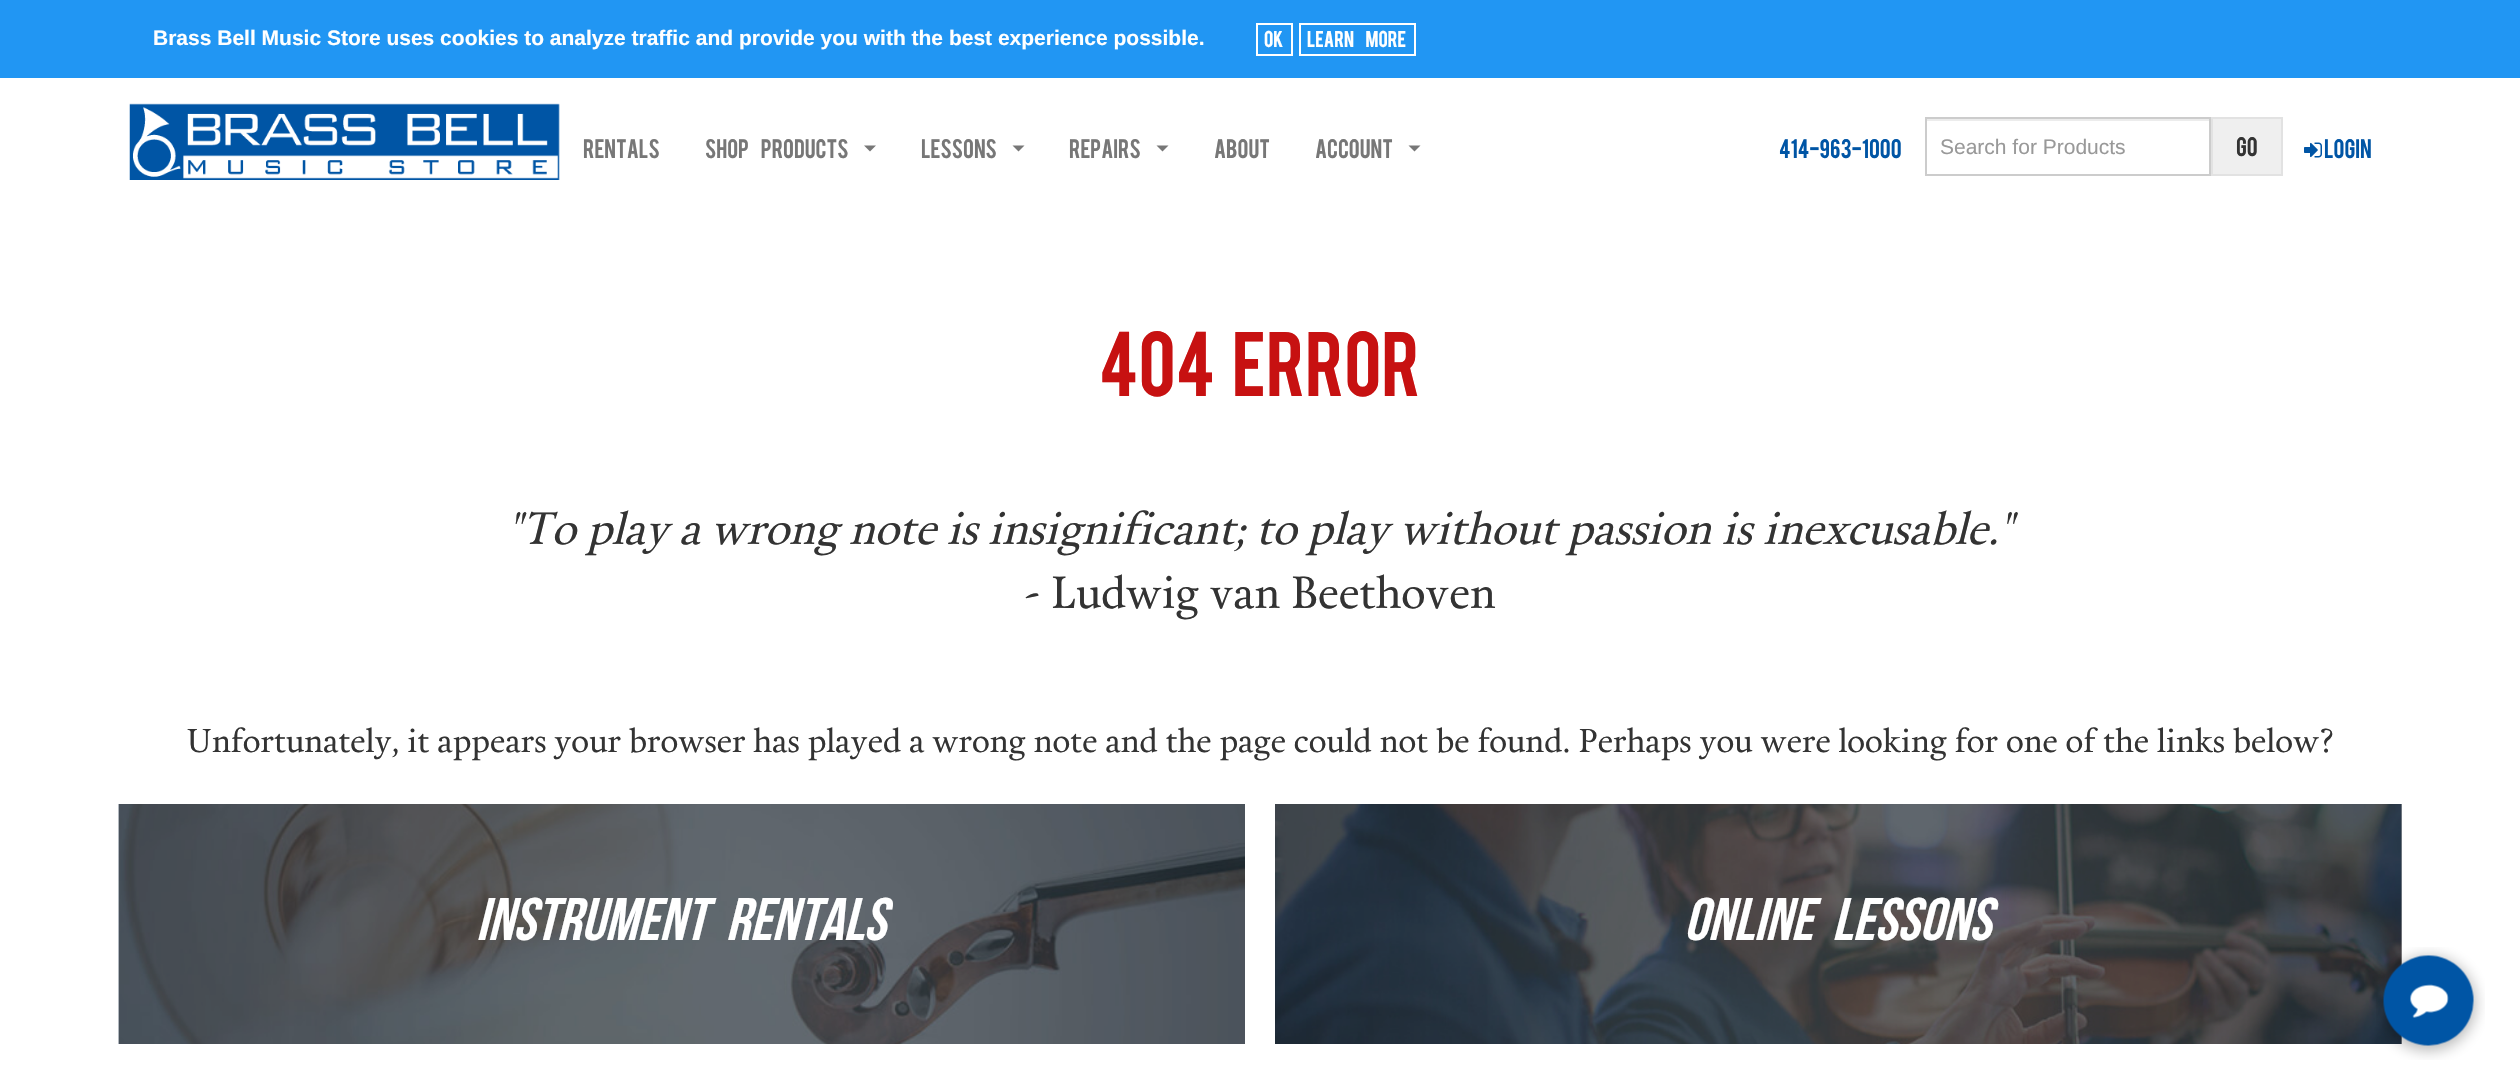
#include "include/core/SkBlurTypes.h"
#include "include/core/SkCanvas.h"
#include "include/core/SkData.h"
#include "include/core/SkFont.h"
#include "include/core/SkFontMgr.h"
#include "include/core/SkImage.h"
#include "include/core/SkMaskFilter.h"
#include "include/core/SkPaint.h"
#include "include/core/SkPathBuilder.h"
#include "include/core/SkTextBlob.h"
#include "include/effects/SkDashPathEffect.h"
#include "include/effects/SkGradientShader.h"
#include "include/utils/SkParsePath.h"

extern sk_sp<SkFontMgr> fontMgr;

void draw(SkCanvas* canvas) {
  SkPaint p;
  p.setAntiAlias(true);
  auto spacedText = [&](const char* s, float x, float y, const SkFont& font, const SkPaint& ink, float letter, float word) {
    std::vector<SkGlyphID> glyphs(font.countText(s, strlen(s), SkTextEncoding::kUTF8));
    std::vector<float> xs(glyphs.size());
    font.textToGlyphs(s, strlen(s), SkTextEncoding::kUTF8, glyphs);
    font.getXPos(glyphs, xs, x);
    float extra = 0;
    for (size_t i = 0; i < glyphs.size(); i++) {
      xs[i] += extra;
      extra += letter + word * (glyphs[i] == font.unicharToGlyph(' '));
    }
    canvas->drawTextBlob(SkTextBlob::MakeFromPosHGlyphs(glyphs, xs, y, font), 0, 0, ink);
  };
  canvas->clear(SK_ColorWHITE);
  p.setColor(SkColorSetRGB(179, 179, 179));
  canvas->drawRect(SkRect::MakeLTRB(2401, 804, 2402, 1044), p);
  p.setColor(SkColorSetRGB(33, 150, 243));
  canvas->drawRect(SkRect::MakeLTRB(0, 0, 2520, 78), p);
  p.setStyle(SkPaint::kStroke_Style);
  p.setStrokeWidth(2);
  p.setColor(SK_ColorWHITE);
  canvas->drawRect(SkRect::MakeLTRB(1257, 24, 1292, 55), p);
  canvas->drawRect(SkRect::MakeLTRB(1300, 24, 1415, 55), p);
  canvas->drawImageRect(SkImages::DeferredFromEncodedData(SkData::MakeFromFileName("images/1.png")), SkRect::MakeLTRB(129, 103, 560, 180), SkSamplingOptions());
  p.setStyle(SkPaint::kFill_Style);
  p.setColor(SkColorSetRGB(119, 119, 119));
  canvas->drawPath(SkPathBuilder().moveTo(864, 145.5f).lineTo(876, 145.5f).lineTo(870, 151.5f).close().detach(), p);
  canvas->drawPath(SkPathBuilder().moveTo(1012.5f, 145.5f).lineTo(1024.5f, 145.5f).lineTo(1018.5f, 151.5f).close().detach(), p);
  canvas->drawPath(SkPathBuilder().moveTo(1156.5f, 145.5f).lineTo(1168.5f, 145.5f).lineTo(1162.5f, 151.5f).close().detach(), p);
  canvas->drawPath(SkPathBuilder().moveTo(1408.5f, 145.5f).lineTo(1420.5f, 145.5f).lineTo(1414.5f, 151.5f).close().detach(), p);
  p.setColor(SkColorSetRGB(236, 236, 236));
  canvas->drawRect(SkRect::MakeLTRB(1926, 119, 2210, 121), p);
  p.setStyle(SkPaint::kStroke_Style);
  p.setColor(SkColorSetRGB(204, 204, 204));
  canvas->drawRect(SkRect::MakeLTRB(1926, 118, 2210, 175), p);
  p.setStyle(SkPaint::kFill_Style);
  p.setColor(SkColorSetRGB(239, 239, 239));
  canvas->drawRect(SkRect::MakeLTRB(2212, 118, 2282, 175), p);
  p.setStyle(SkPaint::kStroke_Style);
  p.setColor(SkColorSetRGB(226, 226, 226));
  canvas->drawRect(SkRect::MakeLTRB(2212, 118, 2282, 175), p);
  canvas->drawImageRect(SkImages::DeferredFromEncodedData(SkData::MakeFromFileName("images/2.png")), SkRect::MakeLTRB(2304, 142, 2322, 158), SkSamplingOptions());
  canvas->drawImageRect(SkImages::DeferredFromEncodedData(SkData::MakeFromFileName("images/3.png")), SkRect::MakeLTRB(118, 804, 1245, 1044), SkSamplingOptions());
  canvas->drawImageRect(SkImages::DeferredFromEncodedData(SkData::MakeFromFileName("images/4.png")), SkRect::MakeLTRB(1275, 804, 2402, 1044), SkSamplingOptions());
  canvas->drawImageRect(SkImages::DeferredFromEncodedData(SkData::MakeFromFileName("images/5.png")), SkRect::MakeLTRB(2376, 947, 2485, 1060), SkSamplingOptions());
  SkFont font1(fontMgr->matchFamilyStyle("Liberation Sans", SkFontStyle::Bold()), 21);
  font1.setSubpixel(true);
  p.setStyle(SkPaint::kFill_Style);
  p.setColor(SK_ColorWHITE);
  canvas->drawString("Brass Bell Music Store uses cookies to analyze traffic and provide you with the best experience possible.", 153, 45, font1, p);
  SkFont font2(fontMgr->matchFamilyStyle("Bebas", SkFontStyle::Normal()), 18);
  font2.setSubpixel(true);
  canvas->drawString("Ok", 1264, 47, font2, p);
  spacedText("Learn More", 1307, 47, font2, p, 0, 10);
  SkFont font3(fontMgr->matchFamilyStyle("Bebas", SkFontStyle::Normal()), 21);
  font3.setSubpixel(true);
  p.setColor(SkColorSetRGB(119, 119, 119));
  canvas->drawString("Rentals", 583, 158, font3, p);
  spacedText("Shop Products", 705, 158, font3, p, 0, 10);
  canvas->drawString("Lessons", 921, 158, font3, p);
  canvas->drawString("Repairs", 1069, 158, font3, p);
  canvas->drawString("About", 1214, 158, font3, p);
  canvas->drawString("Account", 1315, 158, font3, p);
  p.setColor(SkColorSetRGB(0, 85, 165));
  canvas->drawString("414-963-1000", 1779, 158, font3, p);
  SkFont font4(fontMgr->matchFamilyStyle("Liberation Sans", SkFontStyle::Normal()), 21);
  font4.setSubpixel(true);
  p.setColor(SkColorSetRGB(153, 153, 153));
  canvas->drawString("Search for Products", 1940, 154, font4, p);
  p.setColor(SkColorSetRGB(51, 51, 51));
  canvas->drawString("GO", 2236, 156, font3, p);
  p.setColor(SkColorSetRGB(0, 85, 165));
  canvas->drawString("Login", 2324, 158, font3, p);
  SkFont font5(fontMgr->matchFamilyStyle("Bebas", SkFontStyle::Normal()), 72);
  font5.setSubpixel(true);
  p.setColor(SkColorSetRGB(199, 17, 17));
  spacedText("404 Error", 1099, 396, font5, p, 0, 10);
  SkFont font6(fontMgr->matchFamilyStyle("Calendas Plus", SkFontStyle::Italic()), 45);
  font6.setSubpixel(true);
  p.setColor(SkColorSetRGB(51, 51, 51));
  canvas->drawString("\"To play a wrong note is insignificant; to play without passion is inexcusable.\"", 507, 544, font6, p);
  SkFont font7(fontMgr->matchFamilyStyle("Calendas Plus", SkFontStyle::Normal()), 45);
  font7.setSubpixel(true);
  canvas->drawString("- Ludwig van Beethoven", 1024, 608, font7, p);
  SkFont font8(fontMgr->matchFamilyStyle("Calendas Plus", SkFontStyle::Normal()), 33);
  font8.setSubpixel(true);
  canvas->drawString("Unfortunately, it appears your browser has played a wrong note and the page could not be found. Perhaps you were looking for one of the links below?", 186, 752, font8, p);
  SkFont font9(fontMgr->matchFamilyStyle("Bebas Neue", SkFontStyle::BoldItalic()), 60);
  font9.setSubpixel(true);
  p.setColor(SK_ColorWHITE);
  spacedText("Instrument Rentals", 476, 940, font9, p, 0, 10);
  spacedText("Online Lessons", 1684, 940, font9, p, 0, 10);
}
